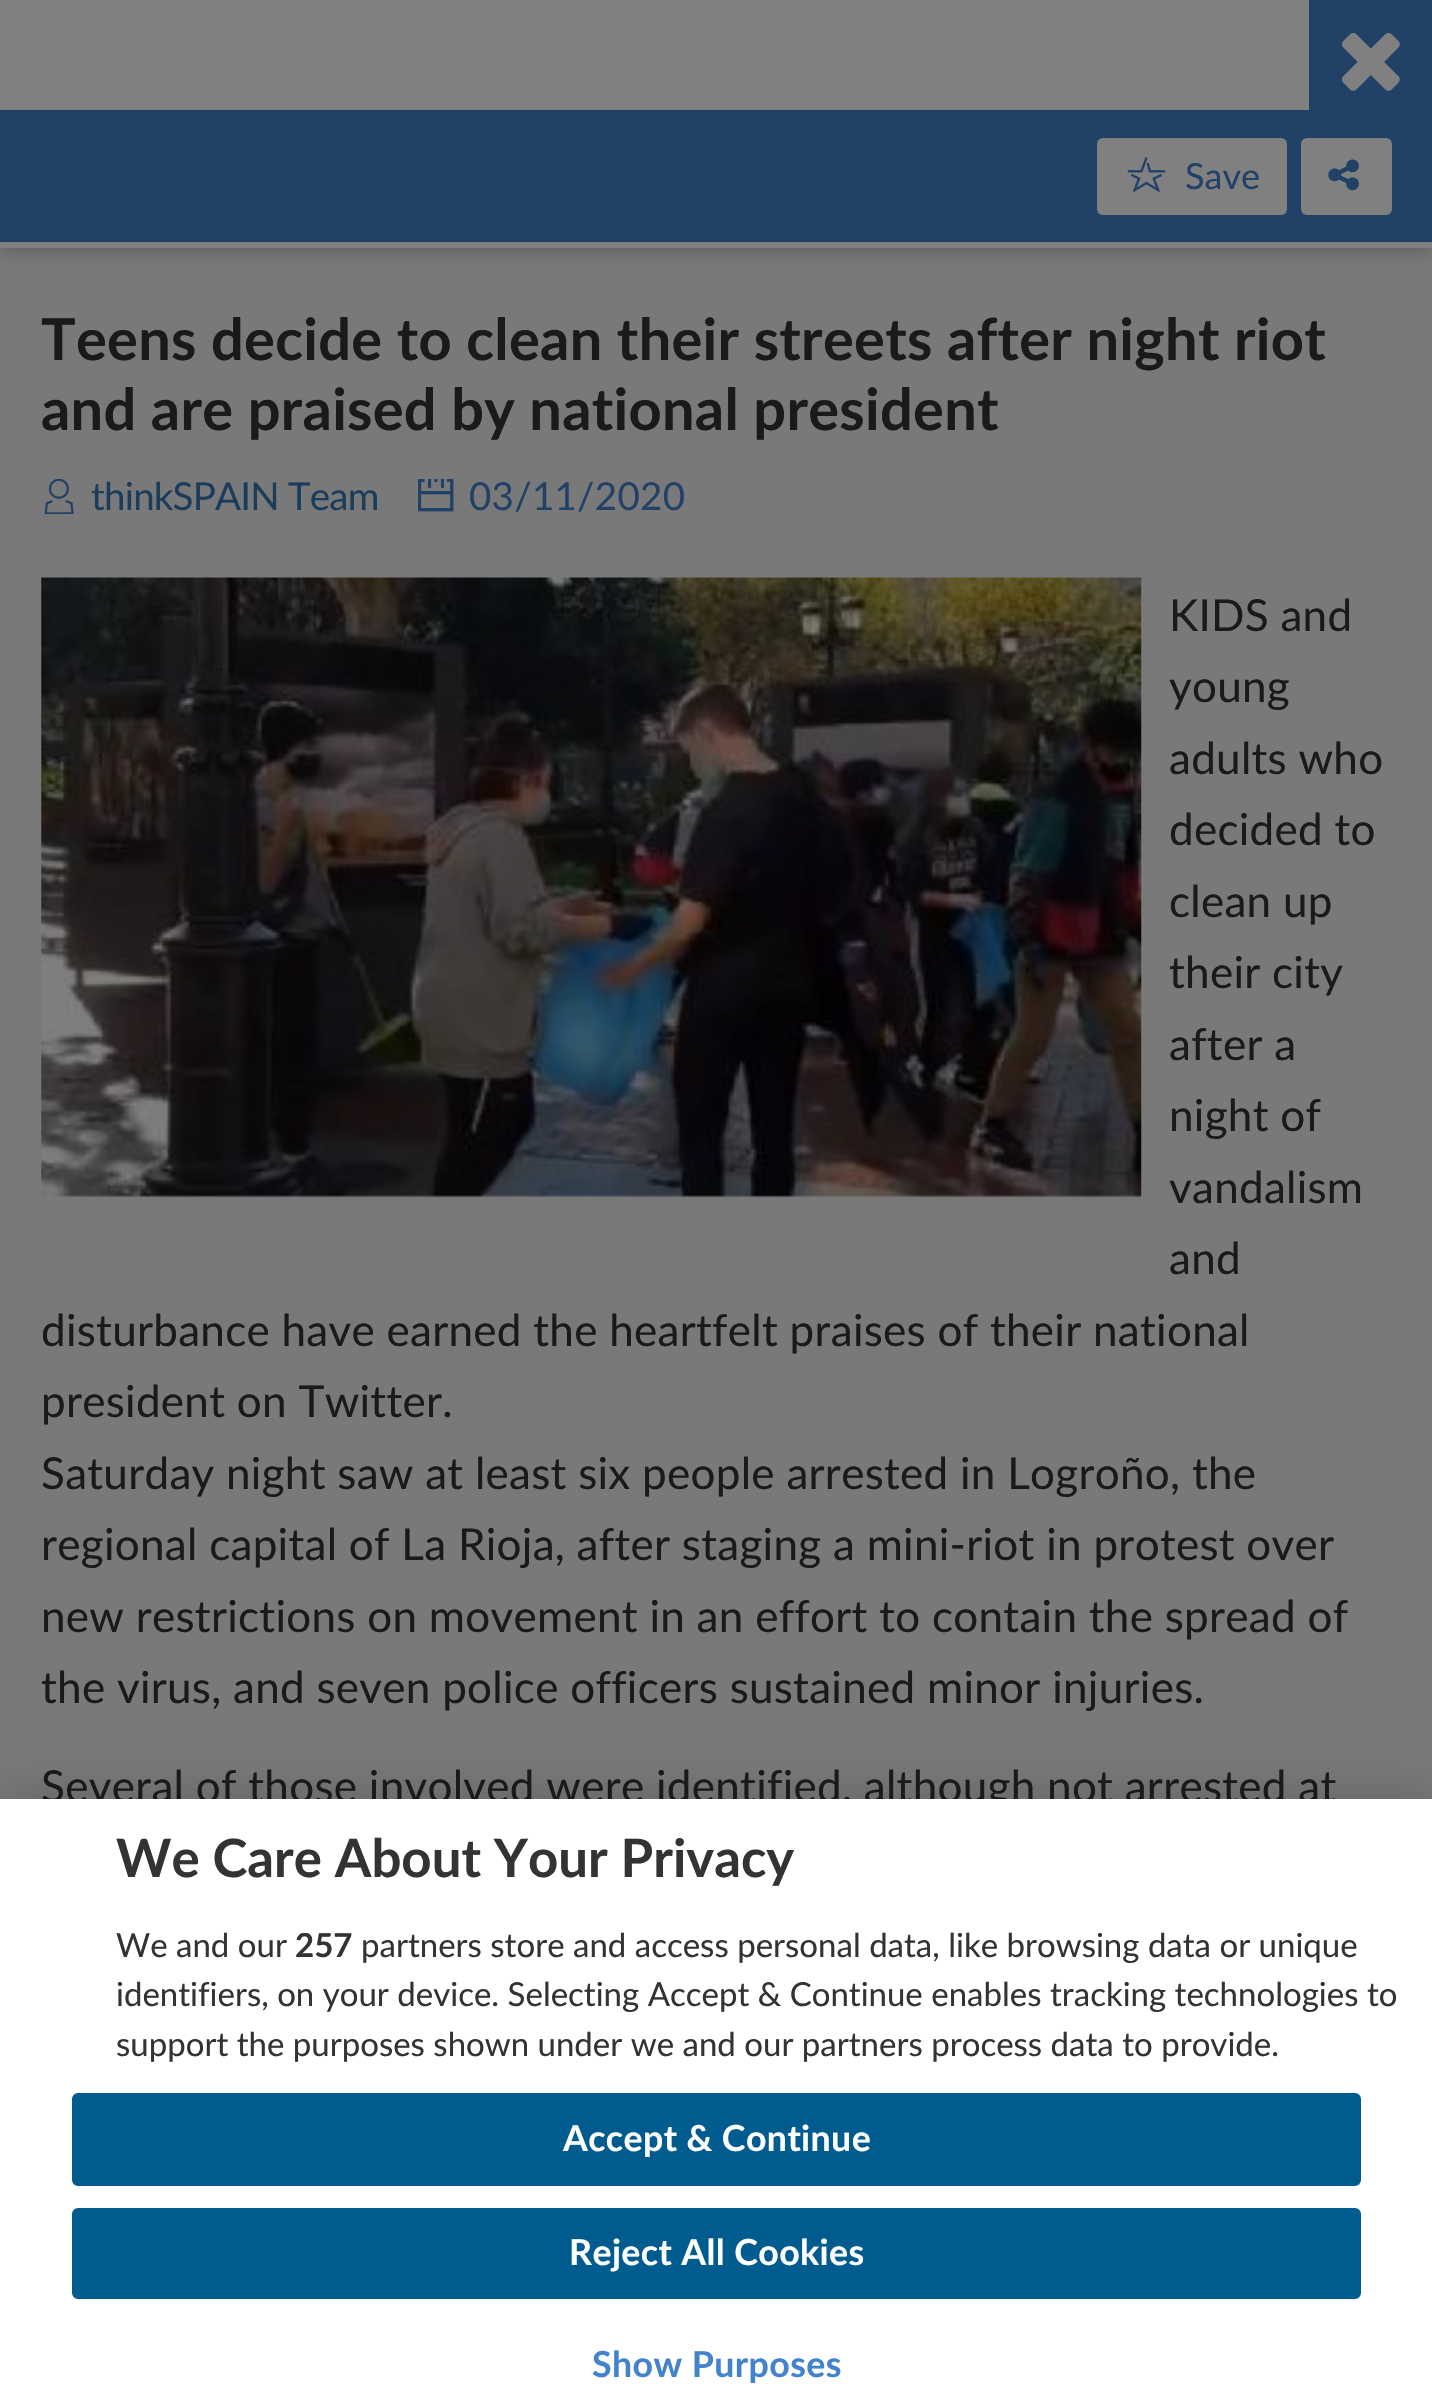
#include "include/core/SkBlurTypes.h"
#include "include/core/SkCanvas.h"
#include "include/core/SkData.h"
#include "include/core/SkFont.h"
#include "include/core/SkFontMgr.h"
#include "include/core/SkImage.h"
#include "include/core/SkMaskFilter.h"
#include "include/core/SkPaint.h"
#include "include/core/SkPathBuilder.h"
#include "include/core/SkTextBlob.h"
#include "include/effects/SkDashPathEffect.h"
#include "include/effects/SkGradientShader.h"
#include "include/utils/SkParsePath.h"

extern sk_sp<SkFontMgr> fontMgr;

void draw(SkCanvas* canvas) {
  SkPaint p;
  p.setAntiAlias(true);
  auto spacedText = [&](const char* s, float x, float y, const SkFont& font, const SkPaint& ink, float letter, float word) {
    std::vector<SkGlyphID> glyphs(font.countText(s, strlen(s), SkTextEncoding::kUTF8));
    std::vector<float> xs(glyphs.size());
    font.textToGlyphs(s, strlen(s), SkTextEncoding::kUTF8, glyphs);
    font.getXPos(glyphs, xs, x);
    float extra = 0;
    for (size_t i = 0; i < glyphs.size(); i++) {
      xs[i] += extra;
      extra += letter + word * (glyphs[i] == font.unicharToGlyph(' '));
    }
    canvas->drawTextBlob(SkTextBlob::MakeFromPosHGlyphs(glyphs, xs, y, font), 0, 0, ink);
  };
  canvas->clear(SkColorSetRGB(121, 121, 121));
  p.setColor(SkColorSetARGB(77, 0, 0, 0));
  p.setMaskFilter(SkMaskFilter::MakeBlur(kNormal_SkBlurStyle, 11));
  canvas->drawRect(SkRect::MakeLTRB(0, 0, 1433, 248), p);
  p.setMaskFilter(nullptr);
  p.setColor(SkColorSetRGB(128, 128, 128));
  canvas->drawRect(SkRect::MakeLTRB(0, 0, 1432, 248), p);
  p.setColor(SkColorSetRGB(34, 65, 103));
  canvas->drawRect(SkRect::MakeLTRB(1309, 0, 1432, 110), p);
  canvas->drawImageRect(SkImages::DeferredFromEncodedData(SkData::MakeFromFileName("images/1.png")), SkRect::MakeLTRB(1342, 33, 1400, 91), SkSamplingOptions());
  canvas->drawRect(SkRect::MakeLTRB(0, 110, 1432, 242), p);
  p.setColor(SkColorSetRGB(128, 128, 128));
  canvas->drawRoundRect(SkRect::MakeLTRB(1097, 138, 1287, 215), 6, 6, p);
  canvas->drawImageRect(SkImages::DeferredFromEncodedData(SkData::MakeFromFileName("images/2.png")), SkRect::MakeLTRB(1127, 157, 1166, 193), SkSamplingOptions());
  canvas->drawRoundRect(SkRect::MakeLTRB(1301, 138, 1392, 215), 6, 6, p);
  canvas->drawImageRect(SkImages::DeferredFromEncodedData(SkData::MakeFromFileName("images/3.png")), SkRect::MakeLTRB(1328, 159, 1359, 191), SkSamplingOptions());
  canvas->drawImageRect(SkImages::DeferredFromEncodedData(SkData::MakeFromFileName("images/4.png")), SkRect::MakeLTRB(44, 479, 74, 514), SkSamplingOptions());
  canvas->drawImageRect(SkImages::DeferredFromEncodedData(SkData::MakeFromFileName("images/5.png")), SkRect::MakeLTRB(418, 479, 454, 512), SkSamplingOptions());
  canvas->drawImageRect(SkImages::DeferredFromEncodedData(SkData::MakeFromFileName("images/6.png")), SkRect::MakeLTRB(41, 577, 1142, 1198), SkSamplingOptions());
  p.setColor(SkColorSetARGB(51, 0, 0, 0));
  p.setMaskFilter(SkMaskFilter::MakeBlur(kNormal_SkBlurStyle, 25));
  canvas->drawRect(SkRect::MakeLTRB(0, 1799, 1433, 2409), p);
  p.setMaskFilter(nullptr);
  SkFont font1(fontMgr->matchFamilyStyle("Lato", SkFontStyle::Normal()), 36);
  font1.setSubpixel(true);
  p.setColor(SkColorSetRGB(34, 65, 103));
  canvas->drawString("Save", 1185, 189, font1, p);
  SkFont font2(fontMgr->matchFamilyStyle("Lato", SkFontStyle::Bold()), 57.75f);
  font2.setSubpixel(true);
  p.setColor(SkColorSetRGB(26, 26, 26));
  spacedText("Teens decide to clean their streets after night riot", 41, 360, font2, p, 0.28f, 0);
  spacedText("and are praised by national president", 41, 430, font2, p, 0.28f, 0);
  SkFont font3(fontMgr->matchFamilyStyle("Lato", SkFontStyle::Normal()), 38.5f);
  font3.setSubpixel(true);
  p.setColor(SkColorSetRGB(26, 61, 92));
  spacedText("thinkSPAIN Team", 91, 510, font3, p, -0.8f, 0);
  p.setColor(SkColorSetRGB(34, 65, 103));
  spacedText("03/11/2020", 469, 510, font3, p, 0.28f, 0);
  SkFont font4(fontMgr->matchFamilyStyle("Lato", SkFontStyle::Normal()), 44);
  font4.setSubpixel(true);
  p.setColor(SkColorSetRGB(26, 26, 26));
  spacedText("KIDS and", 1169, 631, font4, p, 0.28f, 0);
  spacedText("young", 1169, 702, font4, p, 0.28f, 0);
  spacedText("adults who", 1169, 774, font4, p, 0.28f, 0);
  spacedText("decided to", 1169, 845, font4, p, 0.28f, 0);
  spacedText("clean up", 1169, 917, font4, p, 0.28f, 0);
  spacedText("their city", 1169, 988, font4, p, 0.28f, 0);
  spacedText("after a", 1169, 1060, font4, p, 0.28f, 0);
  spacedText("night of", 1169, 1131, font4, p, 0.28f, 0);
  spacedText("vandalism", 1169, 1203, font4, p, 0.28f, 0);
  spacedText("and", 1169, 1274, font4, p, 0.28f, 0);
  spacedText("disturbance have earned the heartfelt praises of their national", 41, 1346, font4, p, 0.28f, 0);
  spacedText("president on Twitter.", 41, 1417, font4, p, 0.28f, 0);
  spacedText("Saturday night saw at least six people arrested in Logroño, the", 41, 1489, font4, p, 0.28f, 0);
  spacedText("regional capital of La Rioja, after staging a mini-riot in protest over", 41, 1560, font4, p, 0.28f, 0);
  spacedText("new restrictions on movement in an effort to contain the spread of", 41, 1632, font4, p, 0.28f, 0);
  spacedText("the virus, and seven police officers sustained minor injuries.", 41, 1703, font4, p, 0.28f, 0);
  spacedText("Several of those involved were identified, although not arrested at", 41, 1802, font4, p, 0.28f, 0);
  p.setColor(SK_ColorWHITE);
  canvas->drawRect(SkRect::MakeLTRB(0, 1799, 1432, 2407), p);
  SkFont font5(fontMgr->matchFamilyStyle("Lato", SkFontStyle::Bold()), 52.75f);
  font5.setSubpixel(true);
  p.setColor(SkColorSetRGB(51, 51, 51));
  canvas->drawString("We Care About Your Privacy", 116, 1877, font5, p);
  SkFont font6(fontMgr->matchFamilyStyle("Lato", SkFontStyle::Normal()), 33);
  font6.setSubpixel(true);
  canvas->drawString("We and our", 116, 1957, font6, p);
  SkFont font7(fontMgr->matchFamilyStyle("Lato", SkFontStyle::Bold()), 33);
  font7.setSubpixel(true);
  canvas->drawString("257", 295, 1957, font7, p);
  canvas->drawString("partners store and access personal data, like browsing data or unique", 361, 1957, font6, p);
  canvas->drawString("identifiers, on your device. Selecting Accept & Continue enables tracking technologies to", 116, 2006, font6, p);
  canvas->drawString("support the purposes shown under we and our partners process data to provide.", 116, 2056, font6, p);
  p.setColor(SkColorSetRGB(0, 92, 143));
  canvas->drawRoundRect(SkRect::MakeLTRB(73.5f, 2094.5f, 1359.5f, 2184.5f), 4.5f, 4.5f, p);
  p.setStyle(SkPaint::kStroke_Style);
  p.setStrokeWidth(3);
  canvas->drawRoundRect(SkRect::MakeLTRB(73.5f, 2094.5f, 1359.5f, 2184.5f), 4.5f, 4.5f, p);
  SkFont font8(fontMgr->matchFamilyStyle("Lato", SkFontStyle::Bold()), 35.75f);
  font8.setSubpixel(true);
  p.setStyle(SkPaint::kFill_Style);
  p.setColor(SK_ColorWHITE);
  spacedText("Accept & Continue", 563, 2151, font8, p, 0.4f, 0);
  p.setColor(SkColorSetRGB(0, 92, 143));
  canvas->drawRoundRect(SkRect::MakeLTRB(73.5f, 2209.5f, 1359.5f, 2297.5f), 4.5f, 4.5f, p);
  p.setStyle(SkPaint::kStroke_Style);
  canvas->drawRoundRect(SkRect::MakeLTRB(73.5f, 2209.5f, 1359.5f, 2297.5f), 4.5f, 4.5f, p);
  p.setStyle(SkPaint::kFill_Style);
  p.setColor(SK_ColorWHITE);
  spacedText("Reject All Cookies", 569, 2265, font8, p, 0.4f, 0);
  p.setColor(SkColorSetRGB(67, 130, 206));
  spacedText("Show Purposes", 592, 2377, font8, p, 0.4f, 0);
}
